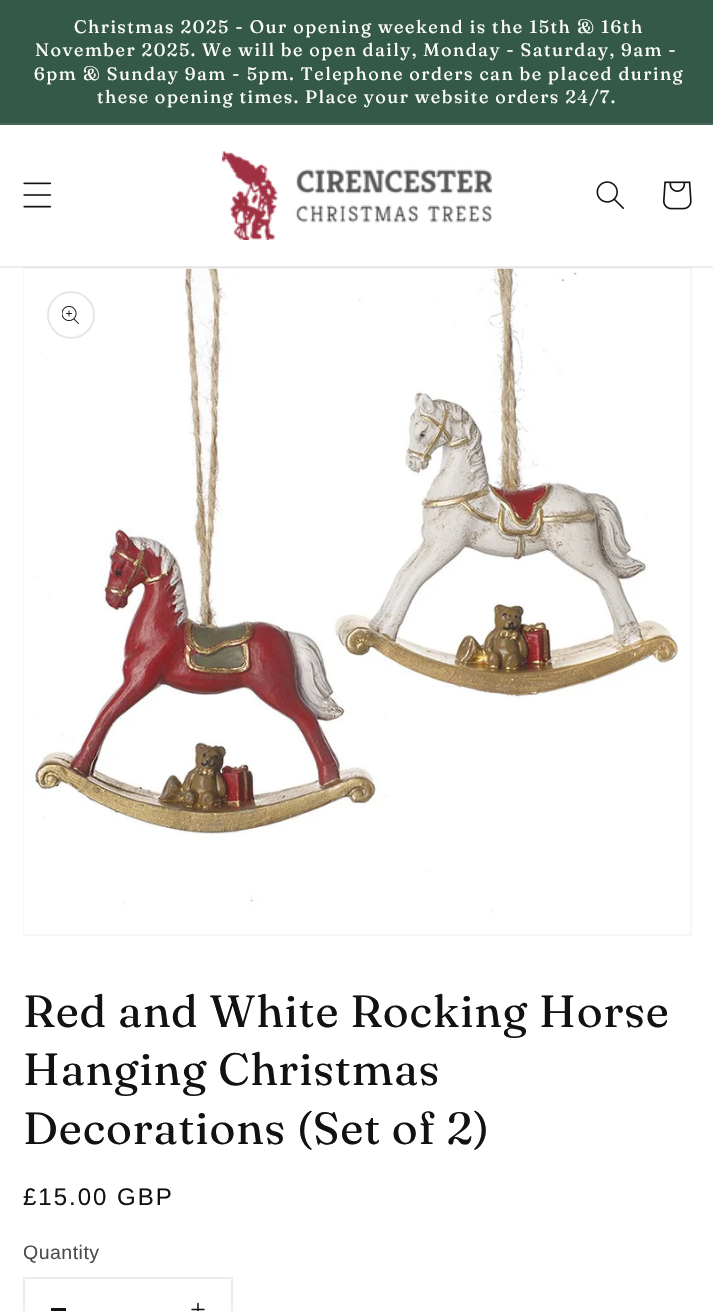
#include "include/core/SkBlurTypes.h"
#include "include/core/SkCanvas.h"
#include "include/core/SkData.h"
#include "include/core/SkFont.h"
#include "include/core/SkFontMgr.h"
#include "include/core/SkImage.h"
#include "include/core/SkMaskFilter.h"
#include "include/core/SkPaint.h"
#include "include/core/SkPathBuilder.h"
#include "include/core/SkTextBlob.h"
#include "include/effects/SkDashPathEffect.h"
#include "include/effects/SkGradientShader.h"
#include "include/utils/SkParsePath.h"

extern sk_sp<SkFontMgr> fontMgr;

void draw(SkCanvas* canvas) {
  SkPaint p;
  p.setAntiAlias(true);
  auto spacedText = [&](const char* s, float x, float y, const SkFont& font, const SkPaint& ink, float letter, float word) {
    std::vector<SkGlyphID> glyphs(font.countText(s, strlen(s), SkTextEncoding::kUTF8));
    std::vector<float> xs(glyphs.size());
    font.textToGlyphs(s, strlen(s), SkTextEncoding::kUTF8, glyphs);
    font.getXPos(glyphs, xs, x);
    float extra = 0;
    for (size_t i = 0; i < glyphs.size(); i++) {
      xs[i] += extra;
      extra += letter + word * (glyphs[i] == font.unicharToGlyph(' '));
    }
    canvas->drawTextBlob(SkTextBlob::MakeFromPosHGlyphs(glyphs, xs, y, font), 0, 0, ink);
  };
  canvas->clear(SK_ColorWHITE);
  p.setColor(SkColorSetRGB(53, 89, 73));
  canvas->drawRect(SkRect::MakeLTRB(0, 0, 713, 123), p);
  p.setColor(SkColorSetRGB(69, 102, 88));
  canvas->drawRect(SkRect::MakeLTRB(0, 123, 713, 125), p);
  p.setStyle(SkPaint::kStroke_Style);
  p.setStrokeWidth(2);
  p.setColor(SkColorSetRGB(246, 246, 246));
  canvas->drawRect(SkRect::MakeLTRB(24, 268, 691, 935), p);
  p.setStyle(SkPaint::kFill_Style);
  p.setColor(SkColorSetARGB(20, 18, 18, 18));
  canvas->drawRect(SkRect::MakeLTRB(0, 266, 713, 268), p);
  canvas->drawImageRect(SkImages::DeferredFromEncodedData(SkData::MakeFromFileName("images/1.png")), SkRect::MakeLTRB(23, 182, 52, 208), SkSamplingOptions());
  canvas->drawImageRect(SkImages::DeferredFromEncodedData(SkData::MakeFromFileName("images/2.png")), SkRect::MakeLTRB(222, 151, 492, 240), SkSamplingOptions());
  canvas->drawImageRect(SkImages::DeferredFromEncodedData(SkData::MakeFromFileName("images/3.png")), SkRect::MakeLTRB(596, 181, 624, 209), SkSamplingOptions());
  canvas->drawImageRect(SkImages::DeferredFromEncodedData(SkData::MakeFromFileName("images/4.png")), SkRect::MakeLTRB(663, 181, 692, 210), SkSamplingOptions());
  canvas->drawImageRect(SkImages::DeferredFromEncodedData(SkData::MakeFromFileName("images/5.png")), SkRect::MakeLTRB(24, 268, 679, 934), SkSamplingOptions());
  p.setStyle(SkPaint::kStroke_Style);
  p.setColor(SkColorSetRGB(231, 231, 231));
  canvas->drawCircle(71, 315, 23, p);
  canvas->drawImageRect(SkImages::DeferredFromEncodedData(SkData::MakeFromFileName("images/6.png")), SkRect::MakeLTRB(62, 306, 79, 324), SkSamplingOptions());
  p.setColor(SkColorSetRGB(236, 236, 236));
  canvas->drawRect(SkRect::MakeLTRB(24, 1278, 232, 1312), p);
  p.setStyle(SkPaint::kFill_Style);
  p.setColor(SkColorSetRGB(18, 18, 18));
  canvas->drawRect(SkRect::MakeLTRB(51, 1308, 66, 1311), p);
  canvas->drawImageRect(SkImages::DeferredFromEncodedData(SkData::MakeFromFileName("images/7.png")), SkRect::MakeLTRB(191, 1302, 205, 1311), SkSamplingOptions());
  SkFont font1(fontMgr->matchFamilyStyle("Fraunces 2", SkFontStyle::Normal()), 18);
  font1.setSubpixel(true);
  p.setColor(SK_ColorWHITE);
  spacedText("Christmas 2025 - Our opening weekend is the 15th & 16th", 74, 33, font1, p, 1.5f, -0.1f);
  spacedText("November 2025. We will be open daily, Monday - Saturday, 9am -", 35, 56, font1, p, 1.5f, -0.25f);
  spacedText("6pm & Sunday 9am - 5pm. Telephone orders can be placed during", 34, 80, font1, p, 1.5f, -0.1f);
  spacedText("these opening times. Place your website orders 24/7.", 97, 103, font1, p, 1.5f, -0.25f);
  SkFont font2(fontMgr->matchFamilyStyle("Fraunces", SkFontStyle::Normal()), 45);
  font2.setSubpixel(true);
  p.setColor(SkColorSetRGB(18, 18, 18));
  spacedText("Red and White Rocking Horse", 23, 1027, font2, p, 0.9f, 0);
  spacedText("Hanging Christmas", 23, 1085, font2, p, 0.9f, 0);
  spacedText("Decorations (Set of 2)", 23, 1144, font2, p, 0.9f, 0);
  SkFont font3(fontMgr->matchFamilyStyle("Arimo", SkFontStyle::Normal()), 24);
  font3.setSubpixel(true);
  spacedText("£15.00 GBP", 23, 1205, font3, p, 2, 0);
  SkFont font4(fontMgr->matchFamilyStyle("Arimo", SkFontStyle::Normal()), 19.5f);
  font4.setSubpixel(true);
  p.setColor(SkColorSetRGB(77, 77, 77));
  spacedText("Quantity", 23, 1259, font4, p, 0.5f, 0);
}
